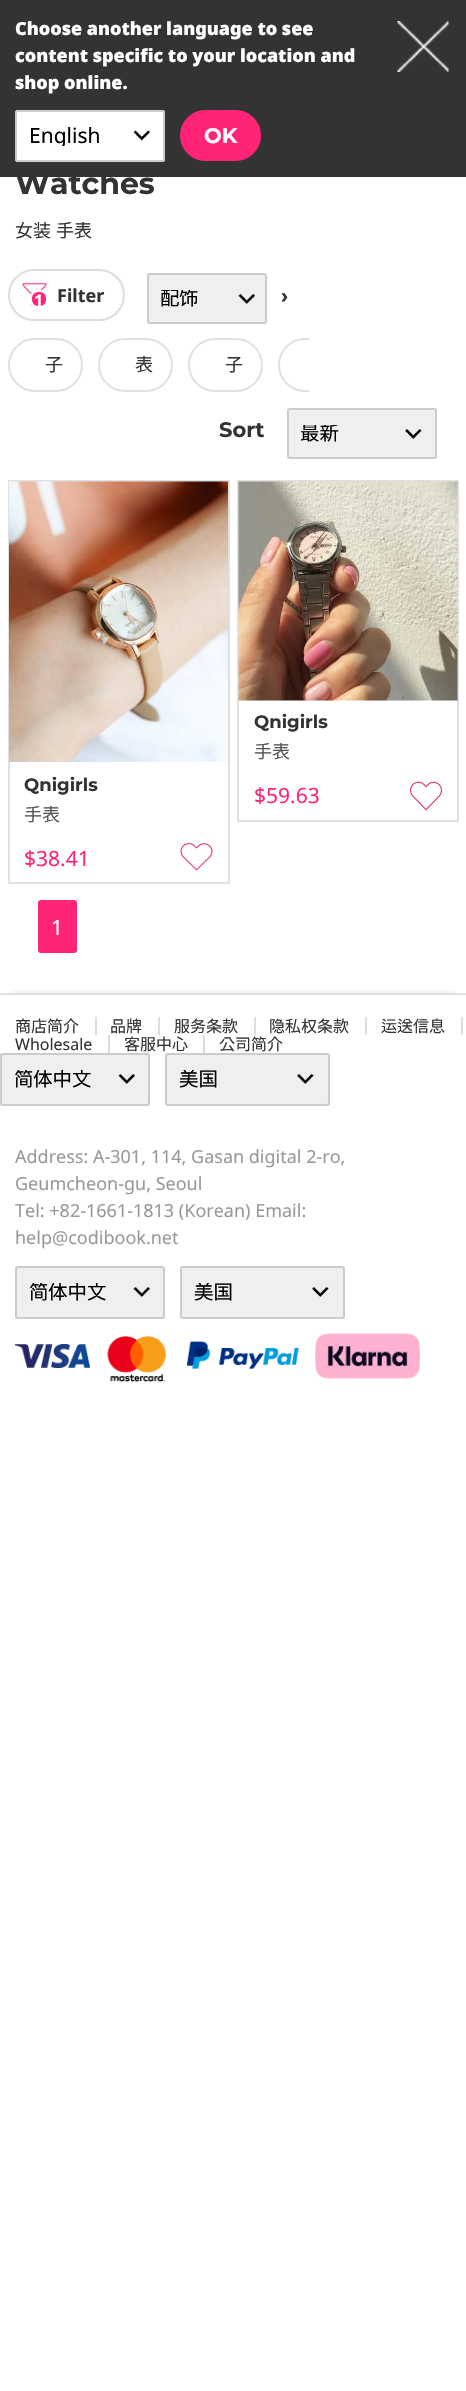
#include "include/core/SkBlurTypes.h"
#include "include/core/SkCanvas.h"
#include "include/core/SkData.h"
#include "include/core/SkFont.h"
#include "include/core/SkFontMgr.h"
#include "include/core/SkImage.h"
#include "include/core/SkMaskFilter.h"
#include "include/core/SkPaint.h"
#include "include/core/SkPathBuilder.h"
#include "include/core/SkTextBlob.h"
#include "include/effects/SkDashPathEffect.h"
#include "include/effects/SkGradientShader.h"
#include "include/utils/SkParsePath.h"

extern sk_sp<SkFontMgr> fontMgr;

void draw(SkCanvas* canvas) {
  SkPaint p;
  p.setAntiAlias(true);
  auto spacedText = [&](const char* s, float x, float y, const SkFont& font, const SkPaint& ink, float letter, float word) {
    std::vector<SkGlyphID> glyphs(font.countText(s, strlen(s), SkTextEncoding::kUTF8));
    std::vector<float> xs(glyphs.size());
    font.textToGlyphs(s, strlen(s), SkTextEncoding::kUTF8, glyphs);
    font.getXPos(glyphs, xs, x);
    float extra = 0;
    for (size_t i = 0; i < glyphs.size(); i++) {
      xs[i] += extra;
      extra += letter + word * (glyphs[i] == font.unicharToGlyph(' '));
    }
    canvas->drawTextBlob(SkTextBlob::MakeFromPosHGlyphs(glyphs, xs, y, font), 0, 0, ink);
  };
  canvas->clear(SK_ColorWHITE);
  p.setColor(SkColorSetRGB(51, 51, 51));
  canvas->drawRect(SkRect::MakeLTRB(0, 0, 466, 177), p);
  canvas->drawImageRect(SkImages::DeferredFromEncodedData(SkData::MakeFromFileName("images/1.png")), SkRect::MakeLTRB(397, 21, 449, 72), SkSamplingOptions());
  p.setColor(SK_ColorWHITE);
  canvas->drawRoundRect(SkRect::MakeLTRB(15, 110, 165, 162), 3, 3, p);
  canvas->drawImageRect(SkImages::DeferredFromEncodedData(SkData::MakeFromFileName("images/2.png")), SkRect::MakeLTRB(133, 130, 150, 141), SkSamplingOptions());
  p.setStyle(SkPaint::kStroke_Style);
  p.setStrokeWidth(2);
  p.setColor(SkColorSetRGB(204, 204, 204));
  canvas->drawRoundRect(SkRect::MakeLTRB(16, 111, 164, 161), 2, 2, p);
  p.setStyle(SkPaint::kFill_Style);
  p.setColor(SkColorSetRGB(255, 36, 119));
  canvas->drawRoundRect(SkRect::MakeLTRB(181, 111, 260, 160), 24.5f, 24.5f, p);
  p.setStyle(SkPaint::kStroke_Style);
  canvas->drawRoundRect(SkRect::MakeLTRB(181, 111, 260, 160), 24.5f, 24.5f, p);
  canvas->drawImageRect(SkImages::DeferredFromEncodedData(SkData::MakeFromFileName("images/3.png")), SkRect::MakeLTRB(22, 282, 47, 309), SkSamplingOptions());
  p.setColor(SkColorSetRGB(221, 221, 221));
  canvas->drawRoundRect(SkRect::MakeLTRB(9, 270, 124, 320), 25, 25, p);
  p.setStyle(SkPaint::kFill_Style);
  p.setColor(SkColorSetRGB(255, 36, 119));
  canvas->drawRoundRect(SkRect::MakeLTRB(31, 291, 47, 307), 7, 7, p);
  p.setStyle(SkPaint::kStroke_Style);
  p.setColor(SK_ColorWHITE);
  canvas->drawRoundRect(SkRect::MakeLTRB(31, 291, 47, 307), 7, 7, p);
  p.setStyle(SkPaint::kFill_Style);
  p.setColor(SkColorSetRGB(239, 239, 239));
  canvas->drawRoundRect(SkRect::MakeLTRB(147, 273, 267, 324), 3, 3, p);
  canvas->drawImageRect(SkImages::DeferredFromEncodedData(SkData::MakeFromFileName("images/4.png")), SkRect::MakeLTRB(238, 294, 255, 304), SkSamplingOptions());
  p.setStyle(SkPaint::kStroke_Style);
  p.setColor(SkColorSetRGB(204, 204, 204));
  canvas->drawRoundRect(SkRect::MakeLTRB(148, 274, 266, 323), 2, 2, p);
  p.setColor(SkColorSetRGB(224, 224, 224));
  canvas->drawRoundRect(SkRect::MakeLTRB(9, 339, 82, 391), 26, 26, p);
  canvas->drawRoundRect(SkRect::MakeLTRB(99, 339, 172, 391), 26, 26, p);
  canvas->drawRoundRect(SkRect::MakeLTRB(189, 339, 262, 391), 26, 26, p);
  canvas->save();
  canvas->clipRect(SkRect::MakeLTRB(8, 338, 309, 392));
  canvas->drawRoundRect(SkRect::MakeLTRB(279, 339, 352, 391), 26, 26, p);
  canvas->restore();
  p.setStyle(SkPaint::kFill_Style);
  p.setColor(SkColorSetRGB(239, 239, 239));
  canvas->drawRoundRect(SkRect::MakeLTRB(287, 408, 437, 459), 3, 3, p);
  canvas->drawImageRect(SkImages::DeferredFromEncodedData(SkData::MakeFromFileName("images/5.png")), SkRect::MakeLTRB(405, 429, 422, 439), SkSamplingOptions());
  p.setStyle(SkPaint::kStroke_Style);
  p.setColor(SkColorSetRGB(204, 204, 204));
  canvas->drawRoundRect(SkRect::MakeLTRB(288, 409, 436, 458), 2, 2, p);
  p.setColor(SkColorSetRGB(224, 224, 224));
  canvas->drawRect(SkRect::MakeLTRB(238, 481, 458, 821), p);
  canvas->drawImageRect(SkImages::DeferredFromEncodedData(SkData::MakeFromFileName("images/6.png")), SkRect::MakeLTRB(238, 481, 458, 701), SkSamplingOptions());
  canvas->drawImageRect(SkImages::DeferredFromEncodedData(SkData::MakeFromFileName("images/7.png")), SkRect::MakeLTRB(410, 781, 442, 811), SkSamplingOptions());
  canvas->drawRect(SkRect::MakeLTRB(9, 481, 229, 883), p);
  canvas->drawImageRect(SkImages::DeferredFromEncodedData(SkData::MakeFromFileName("images/8.png")), SkRect::MakeLTRB(9, 481, 228, 762), SkSamplingOptions());
  canvas->drawImageRect(SkImages::DeferredFromEncodedData(SkData::MakeFromFileName("images/9.png")), SkRect::MakeLTRB(180, 843, 213, 871), SkSamplingOptions());
  p.setStyle(SkPaint::kFill_Style);
  p.setColor(SkColorSetRGB(255, 36, 119));
  canvas->drawRoundRect(SkRect::MakeLTRB(39, 901, 76, 952), 2, 2, p);
  p.setStyle(SkPaint::kStroke_Style);
  canvas->drawRoundRect(SkRect::MakeLTRB(39, 901, 76, 952), 2, 2, p);
  canvas->save();
  canvas->clipRect(SkRect::MakeLTRB(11, 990, 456, 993));
  p.setStyle(SkPaint::kFill_Style);
  p.setColor(SkColorSetARGB(51, 0, 0, 0));
  p.setMaskFilter(SkMaskFilter::MakeBlur(kNormal_SkBlurStyle, 5));
  canvas->drawRect(SkRect::MakeLTRB(12, 996, 455, 1409), p);
  p.setMaskFilter(nullptr);
  canvas->restore();
  p.setColor(SkColorSetRGB(224, 224, 224));
  canvas->drawRect(SkRect::MakeLTRB(0, 993, 466, 995), p);
  p.setColor(SkColorSetRGB(221, 221, 221));
  canvas->drawRect(SkRect::MakeLTRB(95, 1017, 97, 1035), p);
  canvas->drawRect(SkRect::MakeLTRB(158, 1017, 160, 1035), p);
  canvas->drawRect(SkRect::MakeLTRB(254, 1017, 256, 1035), p);
  canvas->drawRect(SkRect::MakeLTRB(365, 1017, 367, 1035), p);
  canvas->drawRect(SkRect::MakeLTRB(461, 1017, 463, 1035), p);
  canvas->drawRect(SkRect::MakeLTRB(108, 1035, 110, 1053), p);
  canvas->drawRect(SkRect::MakeLTRB(203, 1035, 205, 1053), p);
  p.setColor(SkColorSetRGB(239, 239, 239));
  canvas->drawRoundRect(SkRect::MakeLTRB(0, 1053, 150, 1106), 3, 3, p);
  canvas->drawImageRect(SkImages::DeferredFromEncodedData(SkData::MakeFromFileName("images/4.png")), SkRect::MakeLTRB(118, 1074, 135, 1084), SkSamplingOptions());
  p.setStyle(SkPaint::kStroke_Style);
  p.setColor(SkColorSetRGB(204, 204, 204));
  canvas->drawRoundRect(SkRect::MakeLTRB(1, 1054, 149, 1105), 2, 2, p);
  p.setStyle(SkPaint::kFill_Style);
  p.setColor(SkColorSetRGB(239, 239, 239));
  canvas->drawRoundRect(SkRect::MakeLTRB(165, 1053, 330, 1106), 3, 3, p);
  canvas->drawImageRect(SkImages::DeferredFromEncodedData(SkData::MakeFromFileName("images/5.png")), SkRect::MakeLTRB(297, 1074, 314, 1084), SkSamplingOptions());
  p.setStyle(SkPaint::kStroke_Style);
  p.setColor(SkColorSetRGB(204, 204, 204));
  canvas->drawRoundRect(SkRect::MakeLTRB(166, 1054, 329, 1105), 2, 2, p);
  p.setStyle(SkPaint::kFill_Style);
  p.setColor(SkColorSetRGB(239, 239, 239));
  canvas->drawRoundRect(SkRect::MakeLTRB(15, 1266, 165, 1319), 3, 3, p);
  canvas->drawImageRect(SkImages::DeferredFromEncodedData(SkData::MakeFromFileName("images/4.png")), SkRect::MakeLTRB(133, 1287, 150, 1297), SkSamplingOptions());
  p.setStyle(SkPaint::kStroke_Style);
  p.setColor(SkColorSetRGB(204, 204, 204));
  canvas->drawRoundRect(SkRect::MakeLTRB(16, 1267, 164, 1318), 2, 2, p);
  p.setStyle(SkPaint::kFill_Style);
  p.setColor(SkColorSetRGB(239, 239, 239));
  canvas->drawRoundRect(SkRect::MakeLTRB(180, 1266, 345, 1319), 3, 3, p);
  canvas->drawImageRect(SkImages::DeferredFromEncodedData(SkData::MakeFromFileName("images/5.png")), SkRect::MakeLTRB(312, 1287, 329, 1297), SkSamplingOptions());
  p.setStyle(SkPaint::kStroke_Style);
  p.setColor(SkColorSetRGB(204, 204, 204));
  canvas->drawRoundRect(SkRect::MakeLTRB(181, 1267, 344, 1318), 2, 2, p);
  canvas->drawImageRect(SkImages::DeferredFromEncodedData(SkData::MakeFromFileName("images/10.png")), SkRect::MakeLTRB(15, 1344, 90, 1368), SkSamplingOptions());
  canvas->drawImageRect(SkImages::DeferredFromEncodedData(SkData::MakeFromFileName("images/11.png")), SkRect::MakeLTRB(107, 1335, 166, 1383), SkSamplingOptions());
  canvas->drawImageRect(SkImages::DeferredFromEncodedData(SkData::MakeFromFileName("images/12.png")), SkRect::MakeLTRB(187, 1341, 299, 1369), SkSamplingOptions());
  canvas->drawImageRect(SkImages::DeferredFromEncodedData(SkData::MakeFromFileName("images/13.png")), SkRect::MakeLTRB(315, 1333, 420, 1379), SkSamplingOptions());
  SkFont font1(fontMgr->matchFamilyStyle("Noto Sans", SkFontStyle(900, SkFontStyle::kNormal_Width, SkFontStyle::kUpright_Slant)), 18);
  font1.setSubpixel(true);
  p.setStyle(SkPaint::kFill_Style);
  p.setColor(SK_ColorWHITE);
  canvas->drawString("Choose another language to see", 15, 35, font1, p);
  canvas->drawString("content specific to your location and", 15, 62, font1, p);
  canvas->drawString("shop online.", 15, 89, font1, p);
  canvas->save();
  canvas->clipRect(SkRect::MakeLTRB(29, 125, 134, 146));
  SkFont font2(fontMgr->matchFamilyStyle("Noto Sans", SkFontStyle::Normal()), 21);
  font2.setSubpixel(true);
  p.setColor(SK_ColorBLACK);
  canvas->drawString("English", 29, 143, font2, p);
  canvas->restore();
  SkFont font3(fontMgr->matchFamilyStyle("Montserrat", SkFontStyle::Bold()), 21);
  font3.setSubpixel(true);
  p.setColor(SK_ColorWHITE);
  canvas->drawString("OK", 204, 143, font3, p);
  SkFont font4(fontMgr->matchFamilyStyle("Montserrat", SkFontStyle::Bold()), 30);
  font4.setSubpixel(true);
  p.setColor(SkColorSetRGB(51, 51, 51));
  canvas->drawString("Watches", 15, 194, font4, p);
  SkFont font5(fontMgr->matchFamilyStyle("Noto Sans KR", SkFontStyle::Normal()), 18);
  font5.setSubpixel(true);
  spacedText("女装 手表", 15, 237, font5, p, 0, 1);
  SkFont font6(fontMgr->matchFamilyStyle("Noto Sans", SkFontStyle::Bold()), 16);
  font6.setSubpixel(true);
  p.setColor(SK_ColorWHITE);
  canvas->drawString("1", 34, 306, font6, p);
  SkFont font7(fontMgr->matchFamilyStyle("Noto Sans", SkFontStyle::Bold()), 18);
  font7.setSubpixel(true);
  p.setColor(SkColorSetRGB(51, 51, 51));
  canvas->drawString("Filter", 57, 302, font7, p);
  canvas->save();
  canvas->clipRect(SkRect::MakeLTRB(161, 290, 236, 309));
  SkFont font8(fontMgr->matchFamilyStyle("Noto Sans KR", SkFontStyle::Normal()), 19.5f);
  font8.setSubpixel(true);
  p.setColor(SK_ColorBLACK);
  canvas->drawString("配", 160, 305, font8, p);
  SkFont font9(fontMgr->matchFamilyStyle("Noto Sans CJK SC", SkFontStyle::Normal()), 19.5f);
  font9.setSubpixel(true);
  canvas->drawString("饰", 179, 305, font9, p);
  canvas->restore();
  p.setColor(SkColorSetRGB(51, 51, 51));
  canvas->drawString("›", 281, 303, font3, p);
  SkFont font10(fontMgr->matchFamilyStyle("Noto Sans", SkFontStyle::Normal()), 18);
  font10.setSubpixel(true);
  canvas->drawString("帽", 27, 371, font10, p);
  canvas->drawString("子", 45, 371, font5, p);
  canvas->drawString("手", 117, 371, font10, p);
  canvas->drawString("表", 135, 371, font5, p);
  canvas->drawString("袜", 207, 371, font10, p);
  canvas->drawString("子", 225, 371, font5, p);
  canvas->drawString("腰", 297, 371, font10, p);
  canvas->drawString("Sort", 219, 437, font3, p);
  canvas->save();
  canvas->clipRect(SkRect::MakeLTRB(300, 425, 405, 444));
  p.setColor(SK_ColorBLACK);
  canvas->drawString("最新", 300, 440, font8, p);
  canvas->restore();
  SkFont font11(fontMgr->matchFamilyStyle("Montserrat", SkFontStyle::Bold()), 18);
  font11.setSubpixel(true);
  p.setColor(SkColorSetRGB(51, 51, 51));
  canvas->drawString("Qnigirls", 254, 728, font11, p);
  p.setColor(SkColorSetRGB(85, 85, 85));
  canvas->drawString("手表", 254, 758, font5, p);
  p.setColor(SkColorSetRGB(255, 36, 119));
  canvas->drawString("$59.63", 254, 803, font2, p);
  p.setColor(SkColorSetRGB(51, 51, 51));
  canvas->drawString("Qnigirls", 24, 791, font11, p);
  p.setColor(SkColorSetRGB(85, 85, 85));
  canvas->drawString("手表", 24, 821, font5, p);
  p.setColor(SkColorSetRGB(255, 36, 119));
  canvas->drawString("$38.41", 24, 866, font2, p);
  p.setColor(SK_ColorWHITE);
  canvas->drawString("1", 51, 935, font2, p);
  SkFont font12(fontMgr->matchFamilyStyle("Noto Sans KR", SkFontStyle::Normal()), 16);
  font12.setSubpixel(true);
  p.setColor(SkColorSetRGB(51, 51, 51));
  canvas->drawString("商店", 15, 1032, font12, p);
  SkFont font13(fontMgr->matchFamilyStyle("Noto Sans CJK SC", SkFontStyle::Normal()), 16);
  font13.setSubpixel(true);
  canvas->drawString("简", 47, 1032, font13, p);
  canvas->drawString("介", 63, 1032, font12, p);
  canvas->drawString("品牌", 110, 1032, font12, p);
  canvas->drawString("服", 174, 1032, font12, p);
  SkFont font14(fontMgr->matchFamilyStyle("Noto Sans TC", SkFontStyle::Normal()), 16);
  font14.setSubpixel(true);
  canvas->drawString("务条", 190, 1032, font14, p);
  canvas->drawString("款", 222, 1032, font12, p);
  canvas->drawString("隐", 269, 1032, font13, p);
  canvas->drawString("私", 285, 1032, font12, p);
  SkFont font15(fontMgr->matchFamilyStyle("Noto Sans JP", SkFontStyle::Normal()), 16);
  font15.setSubpixel(true);
  canvas->drawString("权条", 301, 1032, font15, p);
  canvas->drawString("款", 333, 1032, font12, p);
  canvas->drawString("运送信息", 381, 1032, font12, p);
  SkFont font16(fontMgr->matchFamilyStyle("Noto Sans", SkFontStyle::Normal()), 16);
  font16.setSubpixel(true);
  canvas->drawString("Wholesale", 15, 1050, font16, p);
  canvas->drawString("客服中心", 124, 1050, font12, p);
  canvas->drawString("公司", 219, 1050, font12, p);
  canvas->drawString("简", 251, 1050, font13, p);
  canvas->drawString("介", 267, 1050, font12, p);
  canvas->save();
  canvas->clipRect(SkRect::MakeLTRB(14, 1070, 119, 1089));
  p.setColor(SK_ColorBLACK);
  canvas->drawString("简", 14, 1086, font9, p);
  canvas->drawString("体中文", 33, 1086, font8, p);
  canvas->restore();
  canvas->save();
  canvas->clipRect(SkRect::MakeLTRB(179, 1070, 299, 1089));
  canvas->drawString("美国", 179, 1086, font8, p);
  canvas->restore();
  p.setColor(SkColorSetRGB(153, 153, 153));
  canvas->drawString("Address: A-301, 114, Gasan digital 2-ro,", 15, 1163, font10, p);
  canvas->drawString("Geumcheon-gu, Seoul", 15, 1190, font10, p);
  canvas->drawString("Tel: +82-1661-1813 (Korean) Email:", 15, 1217, font10, p);
  canvas->drawString("help@codibook.net", 15, 1244, font10, p);
  canvas->save();
  canvas->clipRect(SkRect::MakeLTRB(29, 1283, 134, 1302));
  p.setColor(SK_ColorBLACK);
  canvas->drawString("简", 29, 1299, font9, p);
  canvas->drawString("体中文", 48, 1299, font8, p);
  canvas->restore();
  canvas->save();
  canvas->clipRect(SkRect::MakeLTRB(194, 1283, 314, 1302));
  canvas->drawString("美国", 194, 1299, font8, p);
  canvas->restore();
}
